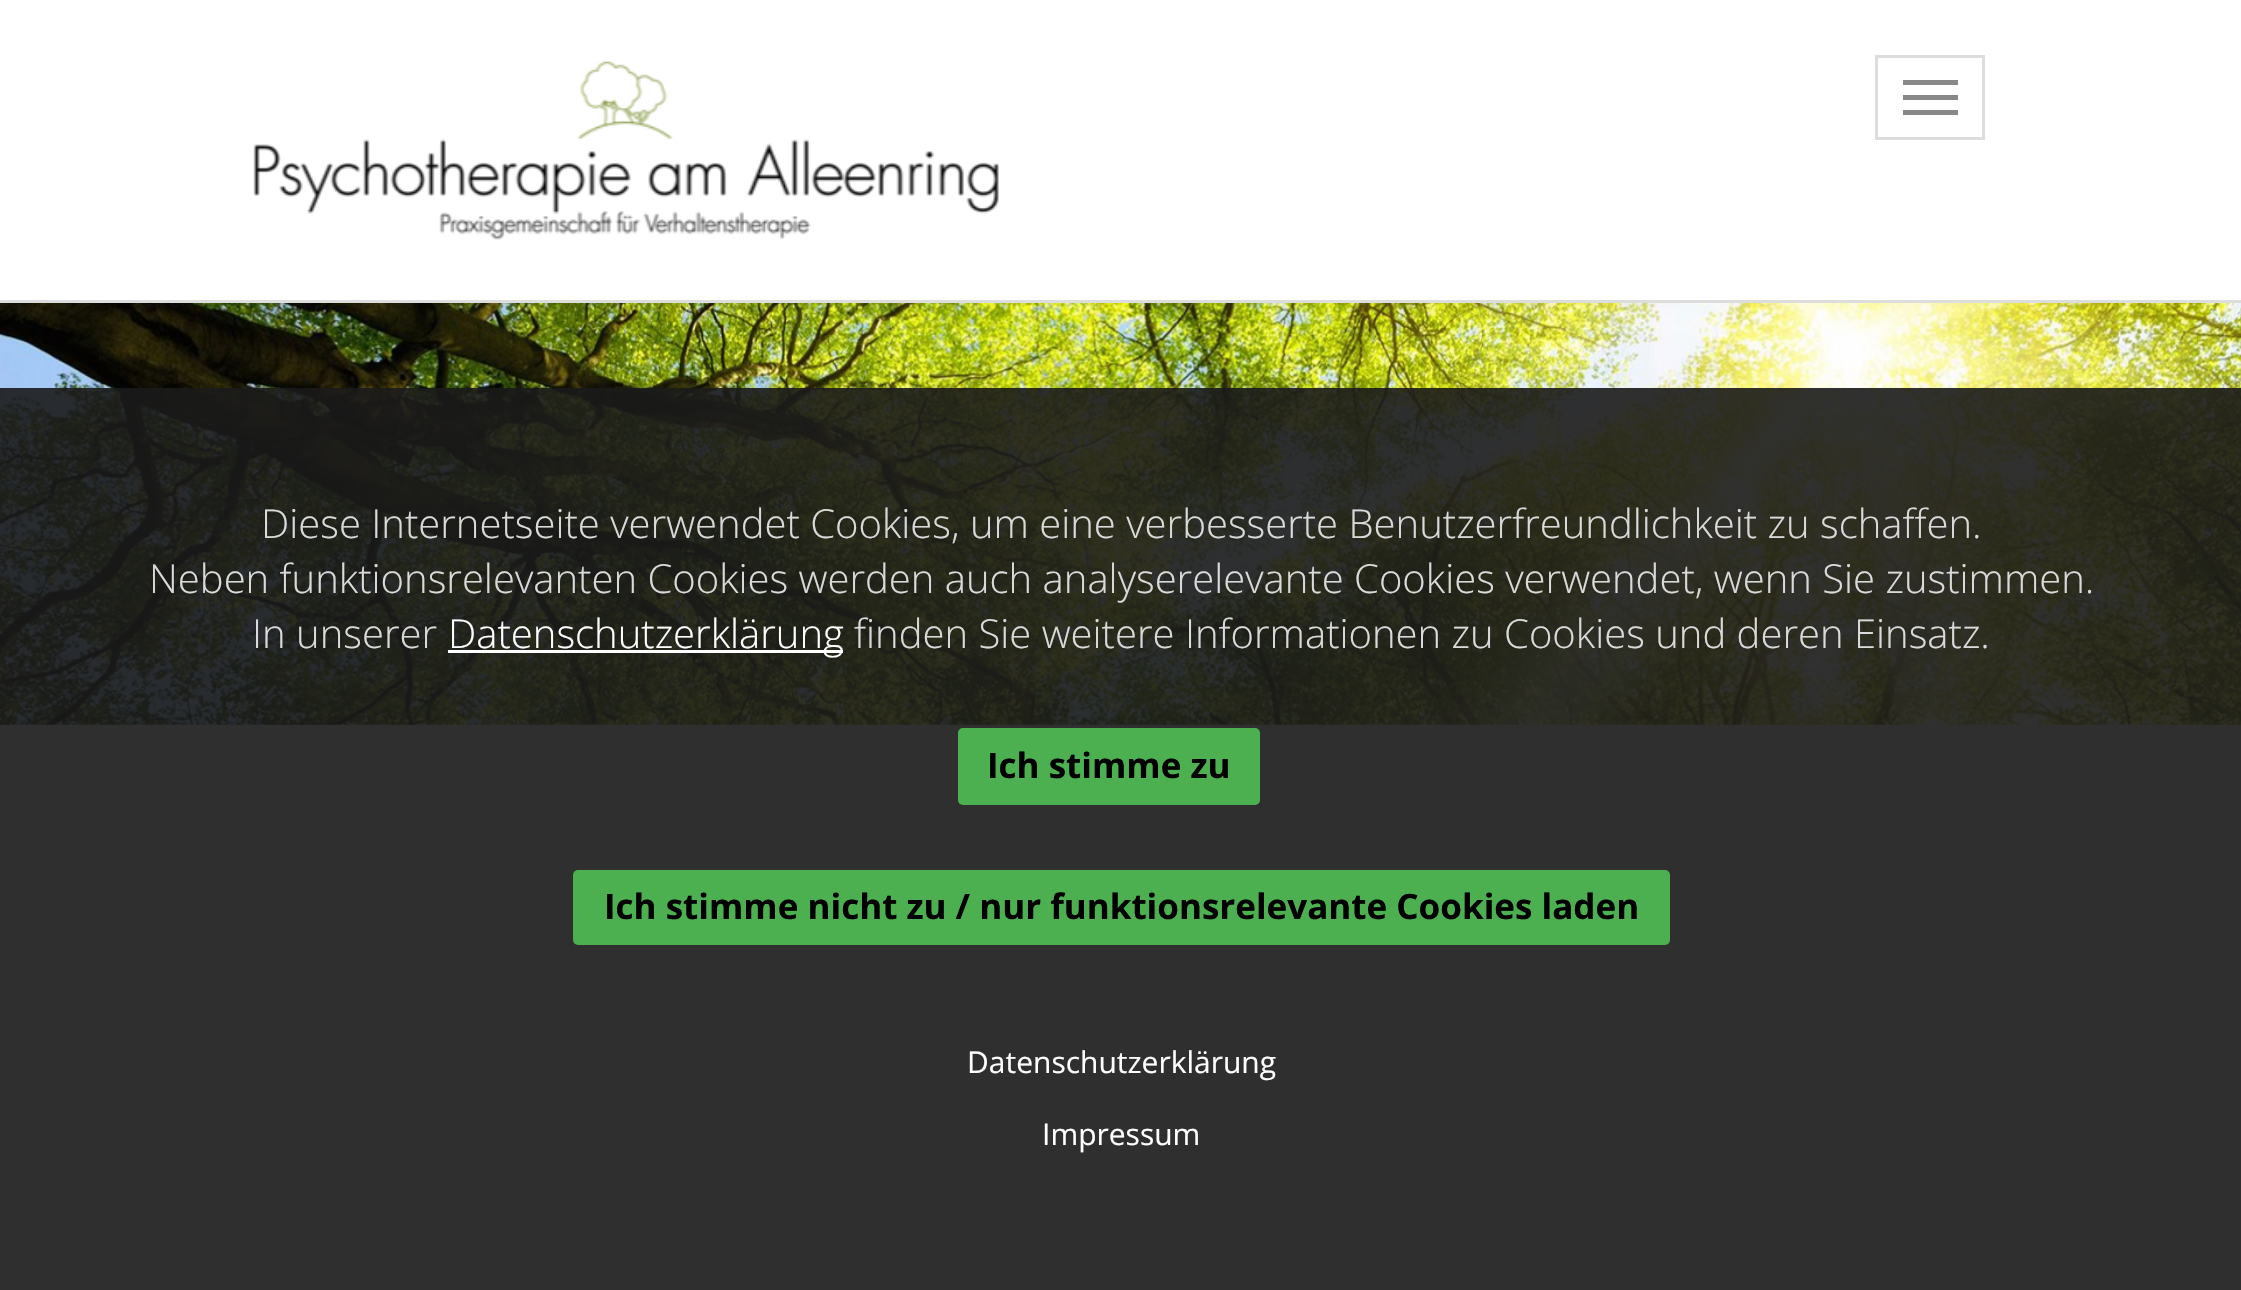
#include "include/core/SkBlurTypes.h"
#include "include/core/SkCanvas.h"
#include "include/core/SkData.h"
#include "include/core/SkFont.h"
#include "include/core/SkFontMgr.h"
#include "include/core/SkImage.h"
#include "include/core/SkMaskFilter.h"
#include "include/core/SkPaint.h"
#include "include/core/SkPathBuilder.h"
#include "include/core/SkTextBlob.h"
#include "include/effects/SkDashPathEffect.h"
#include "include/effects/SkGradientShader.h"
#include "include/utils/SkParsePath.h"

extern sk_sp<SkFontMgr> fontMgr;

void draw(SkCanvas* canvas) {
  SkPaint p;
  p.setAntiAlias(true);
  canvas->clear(SkColorSetRGB(244, 244, 244));
  p.setColor(SkColorSetARGB(242, 255, 255, 255));
  canvas->drawRect(SkRect::MakeLTRB(0, 0, 2241, 300), p);
  p.setColor(SkColorSetRGB(221, 221, 221));
  canvas->drawRect(SkRect::MakeLTRB(0, 300, 2241, 303), p);
  canvas->drawImageRect(SkImages::DeferredFromEncodedData(SkData::MakeFromFileName("images/1.png")), SkRect::MakeLTRB(253, 61, 999, 240), SkSamplingOptions());
  p.setStyle(SkPaint::kStroke_Style);
  p.setStrokeWidth(3);
  canvas->drawRect(SkRect::MakeLTRB(1876.5f, 56.5f, 1983.5f, 138.5f), p);
  p.setStyle(SkPaint::kFill_Style);
  p.setColor(SkColorSetRGB(136, 136, 136));
  canvas->drawRect(SkRect::MakeLTRB(1903, 80, 1958, 85), p);
  canvas->drawRect(SkRect::MakeLTRB(1903, 95, 1958, 100), p);
  canvas->drawRect(SkRect::MakeLTRB(1903, 110, 1958, 115), p);
  canvas->drawImageRect(SkImages::DeferredFromEncodedData(SkData::MakeFromFileName("images/2.png")), SkRect::MakeLTRB(0, 303, 2241, 725), SkSamplingOptions());
  p.setColor(SkColorSetARGB(230, 25, 25, 25));
  canvas->drawRect(SkRect::MakeLTRB(0, 388, 2241, 1290), p);
  p.setColor(SK_ColorWHITE);
  canvas->drawRect(SkRect::MakeLTRB(448, 650, 843, 653), p);
  p.setColor(SkColorSetRGB(76, 175, 80));
  canvas->drawRoundRect(SkRect::MakeLTRB(958, 728, 1260, 805), 5, 5, p);
  canvas->drawRoundRect(SkRect::MakeLTRB(573, 870, 1670, 945), 5, 5, p);
  SkFont font1(fontMgr->matchFamilyStyle("Open Sans", SkFontStyle(300, SkFontStyle::kNormal_Width, SkFontStyle::kUpright_Slant)), 40);
  font1.setSubpixel(true);
  p.setColor(SkColorSetRGB(218, 218, 218));
  canvas->drawString("Diese Internetseite verwendet Cookies, um eine verbesserte Benutzerfreundlichkeit zu schaffen.", 261, 538, font1, p);
  canvas->drawString("Neben funktionsrelevanten Cookies werden auch analyserelevante Cookies verwendet, wenn Sie zustimmen.", 149, 593, font1, p);
  canvas->drawString("In unserer", 252, 648, font1, p);
  p.setColor(SK_ColorWHITE);
  canvas->drawString("Datenschutzerklärung", 448, 648, font1, p);
  p.setColor(SkColorSetRGB(218, 218, 218));
  canvas->drawString("finden Sie weitere Informationen zu Cookies und deren Einsatz.", 854, 648, font1, p);
  SkFont font2(fontMgr->matchFamilyStyle("Open Sans", SkFontStyle::Bold()), 35);
  font2.setSubpixel(true);
  p.setColor(SK_ColorBLACK);
  canvas->drawString("Ich stimme zu", 987, 778, font2, p);
  canvas->drawString("Ich stimme nicht zu / nur funktionsrelevante Cookies laden", 604, 919, font2, p);
  SkFont font3(fontMgr->matchFamilyStyle("Open Sans", SkFontStyle::Normal()), 30);
  font3.setSubpixel(true);
  p.setColor(SK_ColorWHITE);
  canvas->drawString("Datenschutzerklärung", 967, 1073, font3, p);
  canvas->drawString("Impressum", 1042, 1145, font3, p);
}
